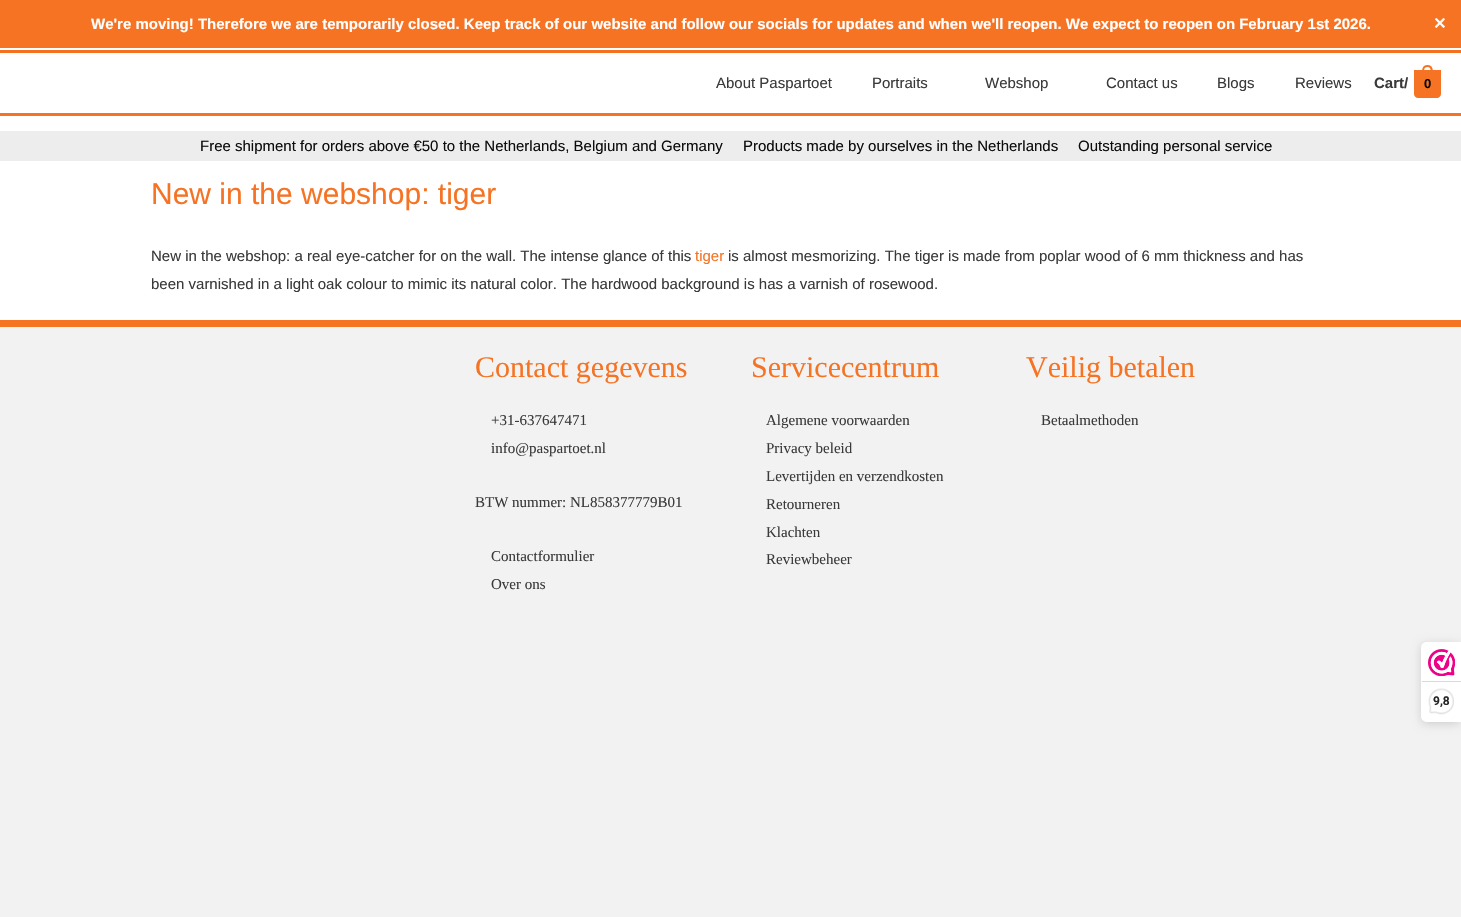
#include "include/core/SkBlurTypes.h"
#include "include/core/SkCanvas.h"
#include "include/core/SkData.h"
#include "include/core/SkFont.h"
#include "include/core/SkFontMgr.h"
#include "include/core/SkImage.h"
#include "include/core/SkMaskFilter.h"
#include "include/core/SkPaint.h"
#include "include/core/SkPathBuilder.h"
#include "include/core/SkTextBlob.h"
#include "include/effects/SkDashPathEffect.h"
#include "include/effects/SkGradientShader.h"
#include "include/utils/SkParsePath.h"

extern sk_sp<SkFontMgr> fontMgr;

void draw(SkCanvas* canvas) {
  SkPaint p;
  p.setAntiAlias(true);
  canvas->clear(SK_ColorWHITE);
  p.setColor(SkColorSetRGB(245, 115, 35));
  canvas->drawRect(SkRect::MakeLTRB(0, 0, 1461, 48), p);
  p.setColor(SkColorSetRGB(244, 113, 33));
  canvas->drawRect(SkRect::MakeLTRB(0, 50, 1461, 53), p);
  p.setColor(SkColorSetRGB(245, 115, 35));
  canvas->drawRect(SkRect::MakeLTRB(0, 113, 1461, 116), p);
  canvas->drawPath(SkPathBuilder().moveTo(1415, 71).lineTo(1440, 71).lineTo(1440, 94).cubicTo(1440, 95.5f, 1438.5f, 97, 1437, 97).lineTo(1418, 97).cubicTo(1416.5f, 97, 1415, 95.5f, 1415, 94).close().detach(), p);
  p.setStyle(SkPaint::kStroke_Style);
  p.setStrokeWidth(2);
  canvas->drawPath(SkPathBuilder().moveTo(1415, 71).lineTo(1440, 71).lineTo(1440, 94).cubicTo(1440, 95.5f, 1438.5f, 97, 1437, 97).lineTo(1418, 97).cubicTo(1416.5f, 97, 1415, 95.5f, 1415, 94).close().detach(), p);
  p.setStyle(SkPaint::kFill_Style);
  canvas->drawPath(SkPathBuilder(SkPathFillType::kEvenOdd).moveTo(1427.5f, 65).cubicTo(1433.5f, 65, 1433, 71, 1433, 75).lineTo(1422, 75).cubicTo(1422, 71, 1421.5f, 65, 1427.5f, 65).close().moveTo(1427.5f, 67).cubicTo(1431.5f, 67, 1431, 72, 1431, 75).lineTo(1424, 75).cubicTo(1424, 72, 1423, 67, 1427.5f, 67).close().detach(), p);
  p.setColor(SkColorSetRGB(237, 237, 237));
  canvas->drawRect(SkRect::MakeLTRB(0, 131, 1461, 161), p);
  p.setColor(SkColorSetRGB(242, 242, 242));
  canvas->drawRect(SkRect::MakeLTRB(0, 327, 1461, 917), p);
  p.setColor(SkColorSetRGB(245, 115, 35));
  canvas->drawRect(SkRect::MakeLTRB(0, 320, 1461, 327), p);
  p.setColor(SkColorSetARGB(38, 0, 0, 0));
  p.setMaskFilter(SkMaskFilter::MakeBlur(kNormal_SkBlurStyle, 5));
  canvas->drawRoundRect(SkRect::MakeLTRB(1421, 644, 1461, 724), 6, 6, p);
  p.setMaskFilter(nullptr);
  p.setColor(SK_ColorWHITE);
  canvas->drawPath(SkPathBuilder().moveTo(1427, 642).lineTo(1461, 642).lineTo(1461, 722).lineTo(1427, 722).cubicTo(1423.5f, 722, 1421, 719.5f, 1421, 716).lineTo(1421, 648).cubicTo(1421, 644.5f, 1423.5f, 642, 1427, 642).close().detach(), p);
  canvas->drawImageRect(SkImages::DeferredFromEncodedData(SkData::MakeFromFileName("images/1.png")), SkRect::MakeLTRB(1428, 649, 1455, 676), SkSamplingOptions());
  p.setColor(SkColorSetRGB(217, 217, 217));
  canvas->drawRect(SkRect::MakeLTRB(1422, 681, 1461, 682), p);
  canvas->drawImageRect(SkImages::DeferredFromEncodedData(SkData::MakeFromFileName("images/2.png")), SkRect::MakeLTRB(1428, 688, 1454, 715), SkSamplingOptions());
  SkFont font1(fontMgr->matchFamilyStyle("Liberation Sans", SkFontStyle::Bold()), 15);
  font1.setSubpixel(true);
  p.setColor(SK_ColorWHITE);
  canvas->drawString("We're moving! Therefore we are temporarily closed. Keep track of our website and follow our socials for updates and when we'll reopen. We expect to reopen on February 1st 2026.", 91, 29, font1, p);
  SkFont font2(fontMgr->matchFamilyStyle("DejaVu Sans", SkFontStyle::Bold()), 16);
  font2.setSubpixel(true);
  canvas->drawString("✕", 1433, 29, font2, p);
  SkFont font3(fontMgr->matchFamilyStyle("Liberation Sans", SkFontStyle::Normal()), 15);
  font3.setSubpixel(true);
  p.setColor(SkColorSetRGB(58, 58, 58));
  canvas->drawString("About Paspartoet", 716, 88, font3, p);
  canvas->drawString("Portraits", 872, 88, font3, p);
  canvas->drawString("Webshop", 985, 88, font3, p);
  canvas->drawString("Contact us", 1106, 88, font3, p);
  canvas->drawString("Blogs", 1217, 88, font3, p);
  canvas->drawString("Reviews", 1295, 88, font3, p);
  canvas->drawString("Cart/", 1374, 88, font1, p);
  SkFont font4(fontMgr->matchFamilyStyle("Liberation Sans", SkFontStyle::Bold()), 13);
  font4.setSubpixel(true);
  p.setColor(SK_ColorBLACK);
  canvas->drawString("0", 1424, 88, font4, p);
  p.setColor(SkColorSetRGB(12, 12, 12));
  canvas->drawString("Free shipment for orders above €50 to the Netherlands, Belgium and Germany", 200, 151, font3, p);
  canvas->drawString("Products made by ourselves in the Netherlands", 743, 151, font3, p);
  canvas->drawString("Outstanding personal service", 1078, 151, font3, p);
  SkFont font5(fontMgr->matchFamilyStyle("Liberation Sans", SkFontStyle::Normal()), 30);
  font5.setSubpixel(true);
  p.setColor(SkColorSetRGB(245, 115, 35));
  canvas->drawString("New in the webshop: tiger", 151, 204, font5, p);
  p.setColor(SkColorSetRGB(58, 58, 58));
  canvas->drawString("New in the webshop: a real eye-catcher for on the wall. The intense glance of this", 151, 261, font3, p);
  p.setColor(SkColorSetRGB(245, 115, 35));
  canvas->drawString("tiger", 695, 261, font3, p);
  p.setColor(SkColorSetRGB(58, 58, 58));
  canvas->drawString("is almost mesmorizing. The tiger is made from poplar wood of 6 mm thickness and has", 728, 261, font3, p);
  canvas->drawString("been varnished in a light oak colour to mimic its natural color. The hardwood background is has a varnish of rosewood.", 151, 289, font3, p);
  SkFont font6(fontMgr->matchFamilyStyle("Liberation Serif", SkFontStyle::Normal()), 30);
  font6.setSubpixel(true);
  p.setColor(SkColorSetRGB(245, 115, 35));
  canvas->drawString("Contact gegevens", 475, 377, font6, p);
  SkFont font7(fontMgr->matchFamilyStyle("Liberation Serif", SkFontStyle::Normal()), 15);
  font7.setSubpixel(true);
  p.setColor(SkColorSetRGB(58, 58, 58));
  canvas->drawString("+31-637647471", 491, 425, font7, p);
  canvas->drawString("info@paspartoet.nl", 491, 453, font7, p);
  canvas->drawString("BTW nummer: NL858377779B01", 475, 507, font7, p);
  canvas->drawString("Contactformulier", 491, 561, font7, p);
  canvas->drawString("Over ons", 491, 589, font7, p);
  p.setColor(SkColorSetRGB(245, 115, 35));
  canvas->drawString("Servicecentrum", 751, 377, font6, p);
  p.setColor(SkColorSetRGB(58, 58, 58));
  canvas->drawString("Algemene voorwaarden", 766, 425, font7, p);
  canvas->drawString("Privacy beleid", 766, 453, font7, p);
  canvas->drawString("Levertijden en verzendkosten", 766, 481, font7, p);
  canvas->drawString("Retourneren", 766, 509, font7, p);
  canvas->drawString("Klachten", 766, 537, font7, p);
  canvas->drawString("Reviewbeheer", 766, 564, font7, p);
  p.setColor(SkColorSetRGB(245, 115, 35));
  canvas->drawString("Veilig betalen", 1026, 377, font6, p);
  p.setColor(SkColorSetRGB(58, 58, 58));
  canvas->drawString("Betaalmethoden", 1041, 425, font7, p);
  SkFont font8(fontMgr->matchFamilyStyle("Roboto", SkFontStyle::Bold()), 12);
  font8.setSubpixel(true);
  p.setColor(SkColorSetRGB(39, 38, 38));
  canvas->drawString("9,8", 1433, 705, font8, p);
}
